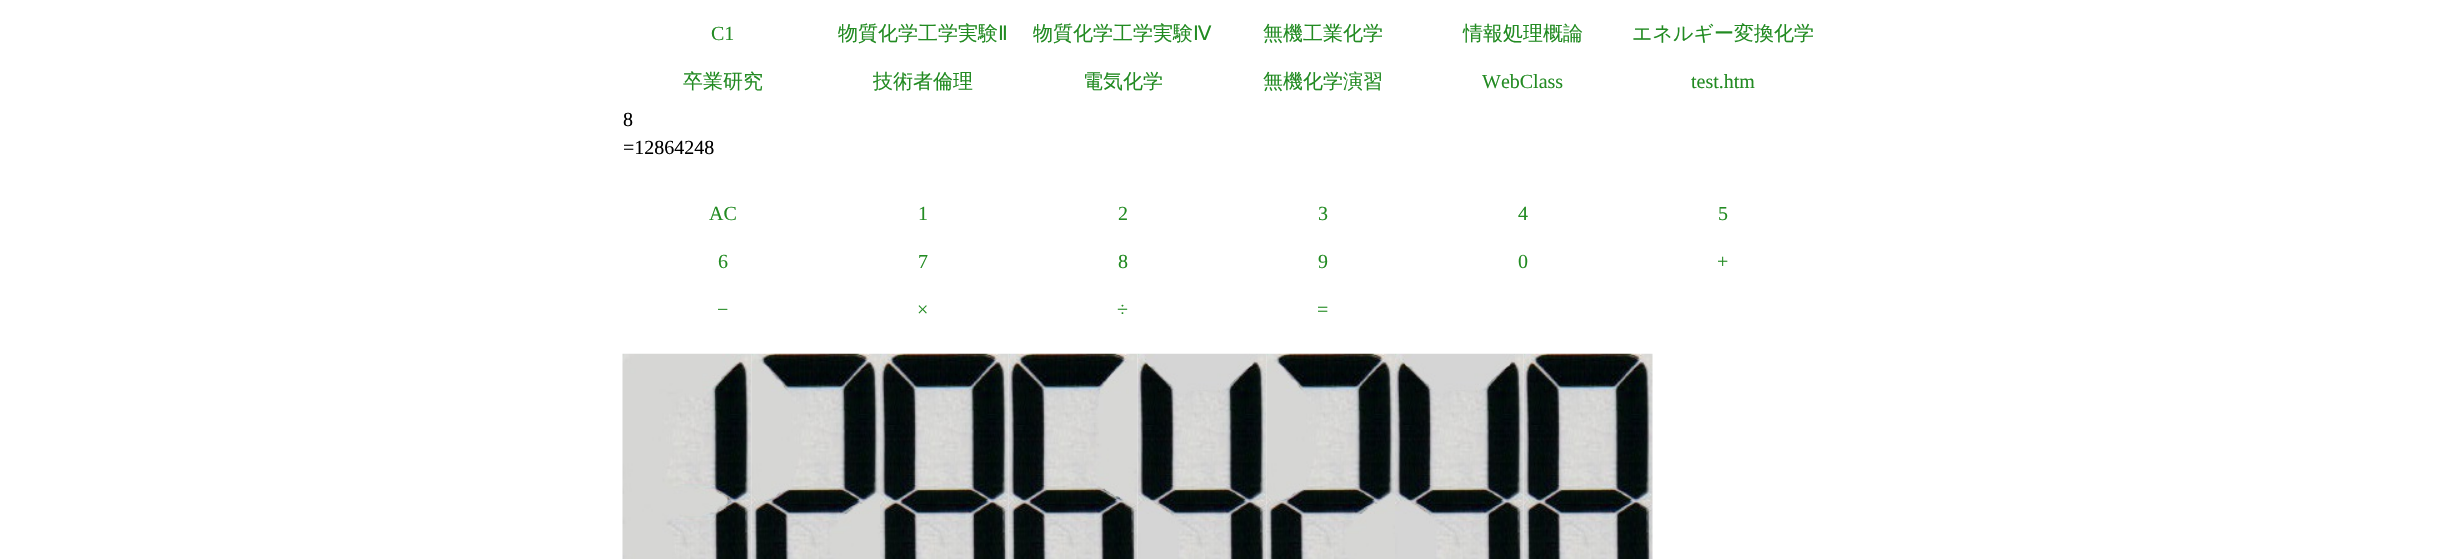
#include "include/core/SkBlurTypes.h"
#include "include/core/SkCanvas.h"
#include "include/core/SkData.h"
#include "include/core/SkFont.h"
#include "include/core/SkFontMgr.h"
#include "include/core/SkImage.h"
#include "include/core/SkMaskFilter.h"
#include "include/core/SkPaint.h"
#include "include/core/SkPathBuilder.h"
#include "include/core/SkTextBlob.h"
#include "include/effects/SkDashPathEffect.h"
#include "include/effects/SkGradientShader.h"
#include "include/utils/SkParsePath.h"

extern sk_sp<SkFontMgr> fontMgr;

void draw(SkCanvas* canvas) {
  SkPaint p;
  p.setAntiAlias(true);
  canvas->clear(SK_ColorWHITE);
  canvas->drawImageRect(SkImages::DeferredFromEncodedData(SkData::MakeFromFileName("images/1.png")), SkRect::MakeLTRB(622, 353, 752, 559), SkSamplingOptions());
  canvas->drawImageRect(SkImages::DeferredFromEncodedData(SkData::MakeFromFileName("images/2.png")), SkRect::MakeLTRB(751, 353, 880, 559), SkSamplingOptions());
  canvas->drawImageRect(SkImages::DeferredFromEncodedData(SkData::MakeFromFileName("images/3.png")), SkRect::MakeLTRB(880, 353, 1009, 559), SkSamplingOptions());
  canvas->drawImageRect(SkImages::DeferredFromEncodedData(SkData::MakeFromFileName("images/4.png")), SkRect::MakeLTRB(1008, 353, 1138, 559), SkSamplingOptions());
  canvas->drawImageRect(SkImages::DeferredFromEncodedData(SkData::MakeFromFileName("images/5.png")), SkRect::MakeLTRB(1137, 353, 1267, 559), SkSamplingOptions());
  canvas->drawImageRect(SkImages::DeferredFromEncodedData(SkData::MakeFromFileName("images/6.png")), SkRect::MakeLTRB(1266, 353, 1395, 559), SkSamplingOptions());
  canvas->drawImageRect(SkImages::DeferredFromEncodedData(SkData::MakeFromFileName("images/7.png")), SkRect::MakeLTRB(1395, 353, 1524, 559), SkSamplingOptions());
  canvas->drawImageRect(SkImages::DeferredFromEncodedData(SkData::MakeFromFileName("images/8.png")), SkRect::MakeLTRB(1523, 353, 1653, 559), SkSamplingOptions());
  SkFont font1(fontMgr->matchFamilyStyle("Liberation Serif", SkFontStyle::Normal()), 20);
  font1.setSubpixel(true);
  p.setColor(SkColorSetRGB(34, 139, 34));
  canvas->drawString("C1", 711, 40, font1, p);
  SkFont font2(fontMgr->matchFamilyStyle("WenQuanYi Zen Hei", SkFontStyle(500, SkFontStyle::kNormal_Width, SkFontStyle::kUpright_Slant)), 20);
  font2.setSubpixel(true);
  canvas->drawString("物質化学工学実験", 838, 40, font2, p);
  SkFont font3(fontMgr->matchFamilyStyle("DejaVu Sans", SkFontStyle::Normal()), 20);
  font3.setSubpixel(true);
  canvas->drawString("Ⅱ", 998, 40, font3, p);
  canvas->drawString("物質化学工学実験", 1033, 40, font2, p);
  canvas->drawString("Ⅳ", 1193, 40, font3, p);
  canvas->drawString("無機工業化学", 1263, 40, font2, p);
  canvas->drawString("情報処理概論", 1463, 40, font2, p);
  canvas->drawString("エネルギー変換化学", 1632, 40, font2, p);
  canvas->drawString("卒業研究", 683, 88, font2, p);
  canvas->drawString("技術者倫理", 873, 88, font2, p);
  canvas->drawString("電気化学", 1083, 88, font2, p);
  canvas->drawString("無機化学演習", 1263, 88, font2, p);
  canvas->drawString("WebClass", 1482, 88, font1, p);
  canvas->drawString("test.htm", 1691, 88, font1, p);
  p.setColor(SK_ColorBLACK);
  canvas->drawString("8", 623, 126, font1, p);
  canvas->drawString("=12864248", 623, 154, font1, p);
  p.setColor(SkColorSetRGB(34, 139, 34));
  canvas->drawString("AC", 709, 220, font1, p);
  canvas->drawString("1", 918, 220, font1, p);
  canvas->drawString("2", 1118, 220, font1, p);
  canvas->drawString("3", 1318, 220, font1, p);
  canvas->drawString("4", 1518, 220, font1, p);
  canvas->drawString("5", 1718, 220, font1, p);
  canvas->drawString("6", 718, 268, font1, p);
  canvas->drawString("7", 918, 268, font1, p);
  canvas->drawString("8", 1118, 268, font1, p);
  canvas->drawString("9", 1318, 268, font1, p);
  canvas->drawString("0", 1518, 268, font1, p);
  canvas->drawString("+", 1717, 268, font1, p);
  canvas->drawString("−", 717, 316, font1, p);
  canvas->drawString("×", 917, 316, font1, p);
  canvas->drawString("÷", 1117, 316, font1, p);
  canvas->drawString("=", 1317, 316, font1, p);
}
